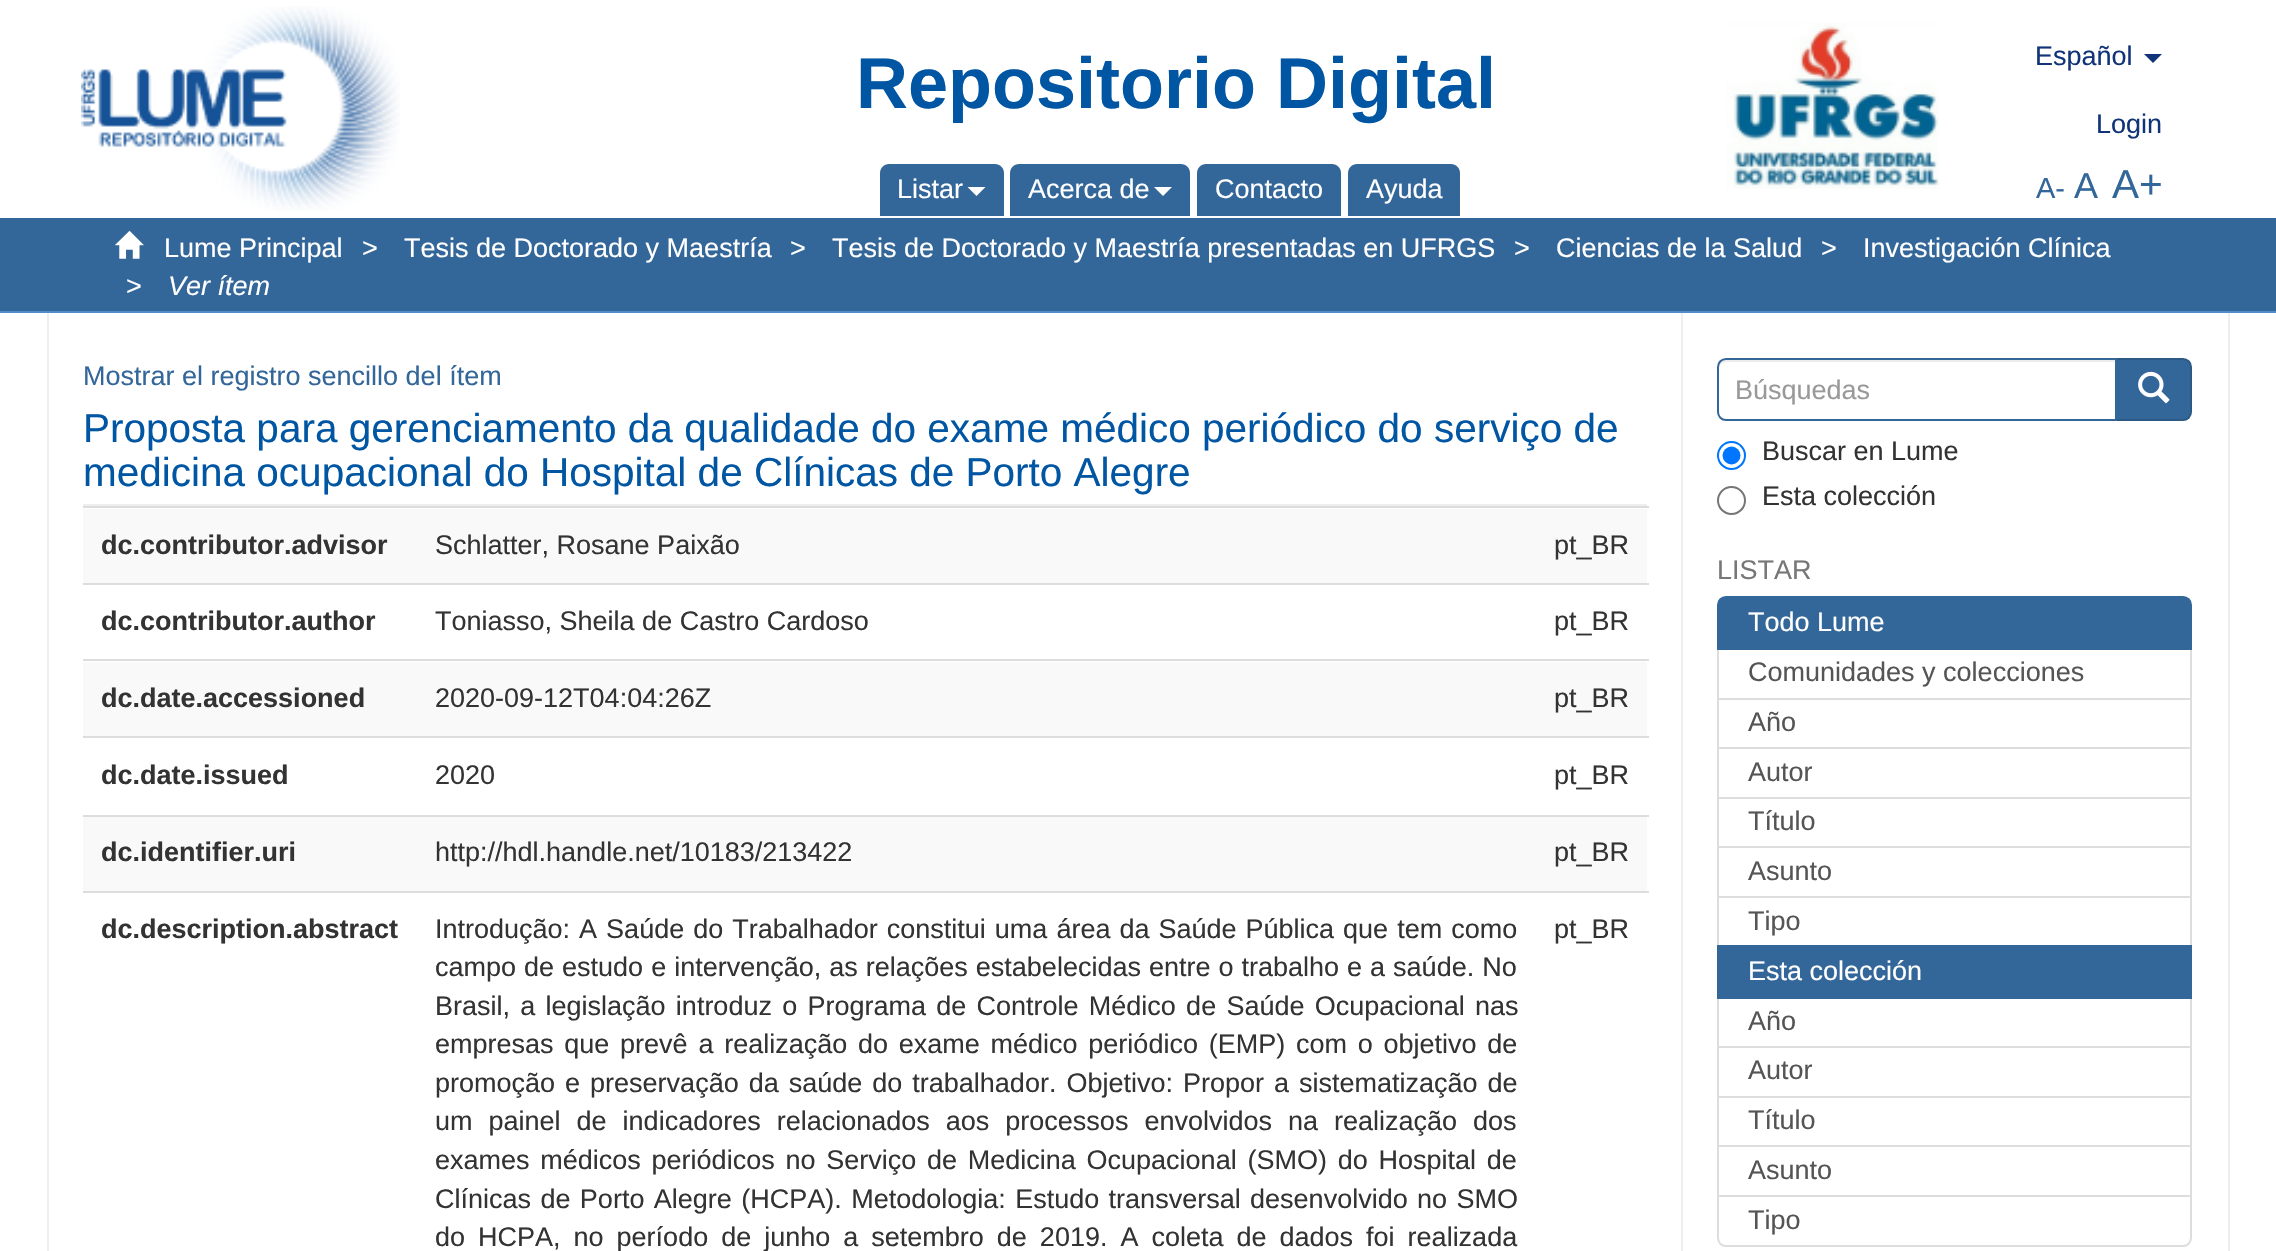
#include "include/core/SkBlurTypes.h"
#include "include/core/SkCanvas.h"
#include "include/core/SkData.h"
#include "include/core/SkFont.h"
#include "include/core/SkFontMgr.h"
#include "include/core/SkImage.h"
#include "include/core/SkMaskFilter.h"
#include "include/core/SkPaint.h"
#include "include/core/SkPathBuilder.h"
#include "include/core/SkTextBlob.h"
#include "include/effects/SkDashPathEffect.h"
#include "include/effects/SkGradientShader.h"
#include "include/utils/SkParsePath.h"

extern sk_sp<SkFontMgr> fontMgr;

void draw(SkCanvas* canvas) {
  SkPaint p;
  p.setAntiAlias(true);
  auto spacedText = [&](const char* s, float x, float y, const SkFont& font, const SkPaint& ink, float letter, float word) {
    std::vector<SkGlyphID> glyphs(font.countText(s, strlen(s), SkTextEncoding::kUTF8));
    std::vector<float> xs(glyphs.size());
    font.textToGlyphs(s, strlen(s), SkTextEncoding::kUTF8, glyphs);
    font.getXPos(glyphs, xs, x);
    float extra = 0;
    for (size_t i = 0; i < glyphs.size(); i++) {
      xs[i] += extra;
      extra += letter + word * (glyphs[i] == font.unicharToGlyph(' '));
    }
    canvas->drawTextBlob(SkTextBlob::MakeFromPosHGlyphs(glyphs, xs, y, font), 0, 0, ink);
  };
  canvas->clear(SK_ColorWHITE);
  canvas->drawImageRect(SkImages::DeferredFromEncodedData(SkData::MakeFromFileName("images/1.png")), SkRect::MakeLTRB(81, 6, 400, 211), SkSamplingOptions());
  p.setColor(SkColorSetRGB(51, 102, 153));
  canvas->drawPath(SkPathBuilder().moveTo(889, 164).lineTo(995, 164).cubicTo(1000, 164, 1004, 168, 1004, 173).lineTo(1004, 216).lineTo(880, 216).lineTo(880, 173).cubicTo(880, 168, 884, 164, 889, 164).close().detach(), p);
  p.setColor(SK_ColorWHITE);
  canvas->drawPath(SkPathBuilder().moveTo(967.5f, 187).lineTo(985.5f, 187).lineTo(976.5f, 196).close().detach(), p);
  p.setColor(SkColorSetRGB(51, 102, 153));
  canvas->drawPath(SkPathBuilder().moveTo(1019, 164).lineTo(1181, 164).cubicTo(1186, 164, 1190, 168, 1190, 173).lineTo(1190, 216).lineTo(1010, 216).lineTo(1010, 173).cubicTo(1010, 168, 1014, 164, 1019, 164).close().detach(), p);
  p.setColor(SK_ColorWHITE);
  canvas->drawPath(SkPathBuilder().moveTo(1154, 187).lineTo(1172, 187).lineTo(1163, 196).close().detach(), p);
  p.setColor(SkColorSetRGB(51, 102, 153));
  canvas->drawPath(SkPathBuilder().moveTo(1206, 164).lineTo(1332, 164).cubicTo(1337, 164, 1341, 168, 1341, 173).lineTo(1341, 216).lineTo(1197, 216).lineTo(1197, 173).cubicTo(1197, 168, 1201, 164, 1206, 164).close().detach(), p);
  canvas->drawPath(SkPathBuilder().moveTo(1357, 164).lineTo(1451, 164).cubicTo(1456, 164, 1460, 168, 1460, 173).lineTo(1460, 216).lineTo(1348, 216).lineTo(1348, 173).cubicTo(1348, 168, 1352, 164, 1357, 164).close().detach(), p);
  canvas->drawImageRect(SkImages::DeferredFromEncodedData(SkData::MakeFromFileName("images/2.png")), SkRect::MakeLTRB(1726, 22, 1940, 189), SkSamplingOptions());
  p.setColor(SkColorSetRGB(17, 51, 119));
  canvas->drawPath(SkPathBuilder().moveTo(2144, 54).lineTo(2162, 54).lineTo(2153, 63).close().detach(), p);
  p.setColor(SkColorSetRGB(51, 102, 153));
  canvas->drawRect(SkRect::MakeLTRB(0, 218, 2276, 311), p);
  p.setColor(SkColorSetRGB(83, 140, 198));
  canvas->drawRect(SkRect::MakeLTRB(0, 311, 2276, 313), p);
  canvas->drawImageRect(SkImages::DeferredFromEncodedData(SkData::MakeFromFileName("images/3.png")), SkRect::MakeLTRB(115, 230, 144, 259), SkSamplingOptions());
  p.setColor(SkColorSetRGB(238, 238, 238));
  canvas->drawRect(SkRect::MakeLTRB(2228, 313, 2230, 1251), p);
  canvas->drawRect(SkRect::MakeLTRB(47, 313, 49, 1251), p);
  canvas->drawRect(SkRect::MakeLTRB(83, 504, 1647, 506), p);
  p.setColor(SkColorSetRGB(249, 249, 249));
  canvas->drawRect(SkRect::MakeLTRB(83, 509, 1647, 583), p);
  p.setColor(SkColorSetRGB(221, 221, 221));
  canvas->drawRect(SkRect::MakeLTRB(83, 506, 1649, 508), p);
  canvas->drawRect(SkRect::MakeLTRB(83, 583, 1649, 585), p);
  p.setColor(SkColorSetRGB(249, 249, 249));
  canvas->drawRect(SkRect::MakeLTRB(83, 662, 1647, 736), p);
  p.setColor(SkColorSetRGB(221, 221, 221));
  canvas->drawRect(SkRect::MakeLTRB(83, 659, 1649, 661), p);
  canvas->drawRect(SkRect::MakeLTRB(83, 736, 1649, 738), p);
  p.setColor(SkColorSetRGB(249, 249, 249));
  canvas->drawRect(SkRect::MakeLTRB(83, 817, 1647, 891), p);
  p.setColor(SkColorSetRGB(221, 221, 221));
  canvas->drawRect(SkRect::MakeLTRB(83, 815, 1649, 817), p);
  canvas->drawRect(SkRect::MakeLTRB(83, 891, 1649, 893), p);
  p.setColor(SkColorSetRGB(238, 238, 238));
  canvas->drawRect(SkRect::MakeLTRB(1681, 313, 1683, 1251), p);
  p.setColor(SkColorSetRGB(51, 102, 153));
  canvas->drawPath(SkPathBuilder().moveTo(2116, 359).lineTo(2183, 359).cubicTo(2187.5f, 359, 2191, 362.5f, 2191, 367).lineTo(2191, 412).cubicTo(2191, 416.5f, 2187.5f, 420, 2183, 420).lineTo(2116, 420).close().detach(), p);
  p.setStyle(SkPaint::kStroke_Style);
  p.setStrokeWidth(2);
  p.setColor(SkColorSetRGB(45, 89, 134));
  canvas->drawPath(SkPathBuilder().moveTo(2116, 359).lineTo(2183, 359).cubicTo(2187.5f, 359, 2191, 362.5f, 2191, 367).lineTo(2191, 412).cubicTo(2191, 416.5f, 2187.5f, 420, 2183, 420).lineTo(2116, 420).close().detach(), p);
  p.setStyle(SkPaint::kFill_Style);
  p.setColor(SK_ColorWHITE);
  canvas->drawPath(SkPathBuilder().moveTo(1726, 358).lineTo(2117, 358).lineTo(2117, 421).lineTo(1726, 421).cubicTo(1721, 421, 1717, 417, 1717, 412).lineTo(1717, 367).cubicTo(1717, 362, 1721, 358, 1726, 358).close().detach(), p);
  p.setColor(SkColorSetRGB(236, 236, 236));
  canvas->drawPath(SkPathBuilder().moveTo(1726, 362).lineTo(2115, 362).lineTo(2115, 360).lineTo(1726, 360).cubicTo(1722, 360, 1719, 363, 1719, 367).lineTo(1719, 369).cubicTo(1719, 365, 1722, 362, 1726, 362).close().detach(), p);
  p.setStyle(SkPaint::kStroke_Style);
  p.setColor(SkColorSetRGB(51, 102, 153));
  canvas->drawPath(SkPathBuilder().moveTo(1726, 359).lineTo(2116, 359).lineTo(2116, 420).lineTo(1726, 420).cubicTo(1721.5f, 420, 1718, 416.5f, 1718, 412).lineTo(1718, 367).cubicTo(1718, 362.5f, 1721.5f, 359, 1726, 359).close().detach(), p);
  canvas->drawImageRect(SkImages::DeferredFromEncodedData(SkData::MakeFromFileName("images/4.png")), SkRect::MakeLTRB(2138, 371, 2170, 404), SkSamplingOptions());
  p.setColor(SkColorSetRGB(0, 117, 255));
  canvas->drawCircle(1731.5f, 455.5f, 13.5f, p);
  p.setStyle(SkPaint::kFill_Style);
  canvas->drawCircle(1731.5f, 455.5f, 9, p);
  p.setStyle(SkPaint::kStroke_Style);
  p.setColor(SkColorSetRGB(118, 118, 118));
  canvas->drawCircle(1731.5f, 500.5f, 13.5f, p);
  p.setColor(SkColorSetRGB(221, 221, 221));
  canvas->drawRect(SkRect::MakeLTRB(1718, 649, 2191, 699), p);
  p.setStyle(SkPaint::kFill_Style);
  p.setColor(SkColorSetRGB(51, 102, 153));
  canvas->drawPath(SkPathBuilder().moveTo(1726, 597).lineTo(2183, 597).cubicTo(2187.5f, 597, 2191, 600.5f, 2191, 605).lineTo(2191, 649).lineTo(1718, 649).lineTo(1718, 605).cubicTo(1718, 600.5f, 1721.5f, 597, 1726, 597).close().detach(), p);
  p.setStyle(SkPaint::kStroke_Style);
  canvas->drawPath(SkPathBuilder().moveTo(1726, 597).lineTo(2183, 597).cubicTo(2187.5f, 597, 2191, 600.5f, 2191, 605).lineTo(2191, 649).lineTo(1718, 649).lineTo(1718, 605).cubicTo(1718, 600.5f, 1721.5f, 597, 1726, 597).close().detach(), p);
  p.setColor(SkColorSetRGB(221, 221, 221));
  canvas->drawRect(SkRect::MakeLTRB(1718, 699, 2191, 748), p);
  canvas->drawRect(SkRect::MakeLTRB(1718, 748, 2191, 798), p);
  canvas->drawRect(SkRect::MakeLTRB(1718, 798, 2191, 847), p);
  canvas->drawRect(SkRect::MakeLTRB(1718, 847, 2191, 897), p);
  canvas->drawRect(SkRect::MakeLTRB(1718, 897, 2191, 946), p);
  canvas->drawRect(SkRect::MakeLTRB(1718, 998, 2191, 1048), p);
  p.setStyle(SkPaint::kFill_Style);
  p.setColor(SkColorSetRGB(51, 102, 153));
  canvas->drawRect(SkRect::MakeLTRB(1717, 945, 2192, 999), p);
  p.setColor(SK_ColorWHITE);
  canvas->drawRect(SkRect::MakeLTRB(1719, 1048, 2190, 1049), p);
  p.setStyle(SkPaint::kStroke_Style);
  p.setColor(SkColorSetRGB(221, 221, 221));
  canvas->drawRect(SkRect::MakeLTRB(1718, 1047, 2191, 1097), p);
  canvas->drawRect(SkRect::MakeLTRB(1718, 1097, 2191, 1147), p);
  p.setStyle(SkPaint::kFill_Style);
  p.setColor(SK_ColorWHITE);
  canvas->drawRect(SkRect::MakeLTRB(1719, 1147, 2190, 1148), p);
  p.setStyle(SkPaint::kStroke_Style);
  p.setColor(SkColorSetRGB(221, 221, 221));
  canvas->drawRect(SkRect::MakeLTRB(1718, 1146, 2191, 1196), p);
  p.setStyle(SkPaint::kFill_Style);
  p.setColor(SK_ColorWHITE);
  canvas->drawPath(SkPathBuilder().moveTo(1718, 1196).lineTo(2191, 1196).lineTo(2191, 1238).cubicTo(2191, 1242.5f, 2187.5f, 1246, 2183, 1246).lineTo(1726, 1246).cubicTo(1721.5f, 1246, 1718, 1242.5f, 1718, 1238).close().detach(), p);
  p.setStyle(SkPaint::kStroke_Style);
  p.setColor(SkColorSetRGB(221, 221, 221));
  canvas->drawPath(SkPathBuilder().moveTo(1718, 1196).lineTo(2191, 1196).lineTo(2191, 1238).cubicTo(2191, 1242.5f, 2187.5f, 1246, 2183, 1246).lineTo(1726, 1246).cubicTo(1721.5f, 1246, 1718, 1242.5f, 1718, 1238).close().detach(), p);
  SkFont font1(fontMgr->matchFamilyStyle("Liberation Sans", SkFontStyle::Bold()), 72);
  font1.setSubpixel(true);
  p.setStyle(SkPaint::kFill_Style);
  p.setColor(SkColorSetRGB(0, 86, 163));
  canvas->drawString("Repositorio Digital", 856, 108, font1, p);
  SkFont font2(fontMgr->matchFamilyStyle("Liberation Sans", SkFontStyle::Normal()), 27);
  font2.setSubpixel(true);
  p.setColor(SK_ColorWHITE);
  canvas->drawString("Listar", 897, 198, font2, p);
  canvas->drawString("Acerca de", 1028, 198, font2, p);
  canvas->drawString("Contacto", 1215, 198, font2, p);
  canvas->drawString("Ayuda", 1366, 198, font2, p);
  p.setColor(SkColorSetRGB(17, 51, 119));
  canvas->drawString("Español", 2035, 65, font2, p);
  canvas->drawString("Login", 2096, 133, font2, p);
  SkFont font3(fontMgr->matchFamilyStyle("Liberation Sans", SkFontStyle::Normal()), 29);
  font3.setSubpixel(true);
  p.setColor(SkColorSetRGB(51, 102, 153));
  canvas->drawString("A-", 2036, 198, font3, p);
  SkFont font4(fontMgr->matchFamilyStyle("Liberation Sans", SkFontStyle::Normal()), 36);
  font4.setSubpixel(true);
  canvas->drawString("A", 2074, 198, font4, p);
  SkFont font5(fontMgr->matchFamilyStyle("Liberation Sans", SkFontStyle::Normal()), 40.5f);
  font5.setSubpixel(true);
  canvas->drawString("A+", 2112, 198, font5, p);
  p.setColor(SK_ColorWHITE);
  canvas->drawString("Lume Principal", 164, 257, font2, p);
  canvas->drawString(">", 362, 257, font2, p);
  canvas->drawString("Tesis de Doctorado y Maestría", 404, 257, font2, p);
  canvas->drawString(">", 790, 257, font2, p);
  canvas->drawString("Tesis de Doctorado y Maestría presentadas en UFRGS", 832, 257, font2, p);
  canvas->drawString(">", 1514, 257, font2, p);
  canvas->drawString("Ciencias de la Salud", 1556, 257, font2, p);
  canvas->drawString(">", 1821, 257, font2, p);
  canvas->drawString("Investigación Clínica", 1863, 257, font2, p);
  canvas->drawString(">", 126, 295, font2, p);
  SkFont font6(fontMgr->matchFamilyStyle("Liberation Sans", SkFontStyle::Italic()), 27);
  font6.setSubpixel(true);
  canvas->drawString("Ver ítem", 168, 295, font6, p);
  p.setColor(SkColorSetRGB(51, 102, 153));
  canvas->drawString("Mostrar el registro sencillo del ítem", 83, 385, font2, p);
  p.setColor(SkColorSetRGB(0, 86, 163));
  canvas->drawString("Proposta para gerenciamento da qualidade do exame médico periódico do serviço de", 83, 442, font5, p);
  canvas->drawString("medicina ocupacional do Hospital de Clínicas de Porto Alegre", 83, 486, font5, p);
  SkFont font7(fontMgr->matchFamilyStyle("Liberation Sans", SkFontStyle::Bold()), 27);
  font7.setSubpixel(true);
  p.setColor(SkColorSetRGB(51, 51, 51));
  canvas->drawString("dc.contributor.advisor", 101, 554, font7, p);
  canvas->drawString("Schlatter, Rosane Paixão", 435, 554, font2, p);
  canvas->drawString("pt_BR", 1554, 554, font2, p);
  canvas->drawString("dc.contributor.author", 101, 630, font7, p);
  canvas->drawString("Toniasso, Sheila de Castro Cardoso", 435, 630, font2, p);
  canvas->drawString("pt_BR", 1554, 630, font2, p);
  canvas->drawString("dc.date.accessioned", 101, 707, font7, p);
  canvas->drawString("2020-09-12T04:04:26Z", 435, 707, font2, p);
  canvas->drawString("pt_BR", 1554, 707, font2, p);
  canvas->drawString("dc.date.issued", 101, 784, font7, p);
  canvas->drawString("2020", 435, 784, font2, p);
  canvas->drawString("pt_BR", 1554, 784, font2, p);
  canvas->drawString("dc.identifier.uri", 101, 861, font7, p);
  canvas->drawString("http://hdl.handle.net/10183/213422", 435, 861, font2, p);
  canvas->drawString("pt_BR", 1554, 861, font2, p);
  canvas->drawString("dc.description.abstract", 101, 938, font7, p);
  spacedText("Introdução: A Saúde do Trabalhador constitui uma área da Saúde Pública que tem como", 435, 938, font2, p, 0, 1.5f);
  spacedText("campo de estudo e intervenção, as relações estabelecidas entre o trabalho e a saúde. No", 435, 976, font2, p, 0, 0.5f);
  spacedText("Brasil, a legislação introduz o Programa de Controle Médico de Saúde Ocupacional nas", 435, 1015, font2, p, 0, 2.75f);
  spacedText("empresas que prevê a realização do exame médico periódico (EMP) com o objetivo de", 435, 1053, font2, p, 0, 3.25f);
  spacedText("promoção e preservação da saúde do trabalhador. Objetivo: Propor a sistematização de", 435, 1092, font2, p, 0, 2.5f);
  spacedText("um painel de indicadores relacionados aos processos envolvidos na realização dos", 435, 1130, font2, p, 0, 8.5f);
  spacedText("exames médicos periódicos no Serviço de Medicina Ocupacional (SMO) do Hospital de", 435, 1169, font2, p, 0, 3.25f);
  spacedText("Clínicas de Porto Alegre (HCPA). Metodologia: Estudo transversal desenvolvido no SMO", 435, 1208, font2, p, 0, 1.9f);
  spacedText("do HCPA, no período de junho a setembro de 2019. A coleta de dados foi realizada", 435, 1246, font2, p, 0, 5.5f);
  canvas->drawString("pt_BR", 1554, 938, font2, p);
  p.setColor(SkColorSetRGB(153, 153, 153));
  canvas->drawString("Búsquedas", 1735, 399, font2, p);
  p.setColor(SkColorSetRGB(51, 51, 51));
  canvas->drawString("Buscar en Lume", 1762, 460, font2, p);
  canvas->drawString("Esta colección", 1762, 505, font2, p);
  p.setColor(SkColorSetRGB(119, 119, 119));
  canvas->drawString("LISTAR", 1717, 579, font2, p);
  p.setColor(SK_ColorWHITE);
  canvas->drawString("Todo Lume", 1748, 631, font2, p);
  p.setColor(SkColorSetRGB(85, 85, 85));
  canvas->drawString("Comunidades y colecciones", 1748, 681, font2, p);
  canvas->drawString("Año", 1748, 731, font2, p);
  canvas->drawString("Autor", 1748, 781, font2, p);
  canvas->drawString("Título", 1748, 830, font2, p);
  canvas->drawString("Asunto", 1748, 880, font2, p);
  canvas->drawString("Tipo", 1748, 930, font2, p);
  p.setColor(SK_ColorWHITE);
  canvas->drawString("Esta colección", 1748, 980, font2, p);
  p.setColor(SkColorSetRGB(85, 85, 85));
  canvas->drawString("Año", 1748, 1030, font2, p);
  canvas->drawString("Autor", 1748, 1079, font2, p);
  canvas->drawString("Título", 1748, 1129, font2, p);
  canvas->drawString("Asunto", 1748, 1179, font2, p);
  canvas->drawString("Tipo", 1748, 1229, font2, p);
}
